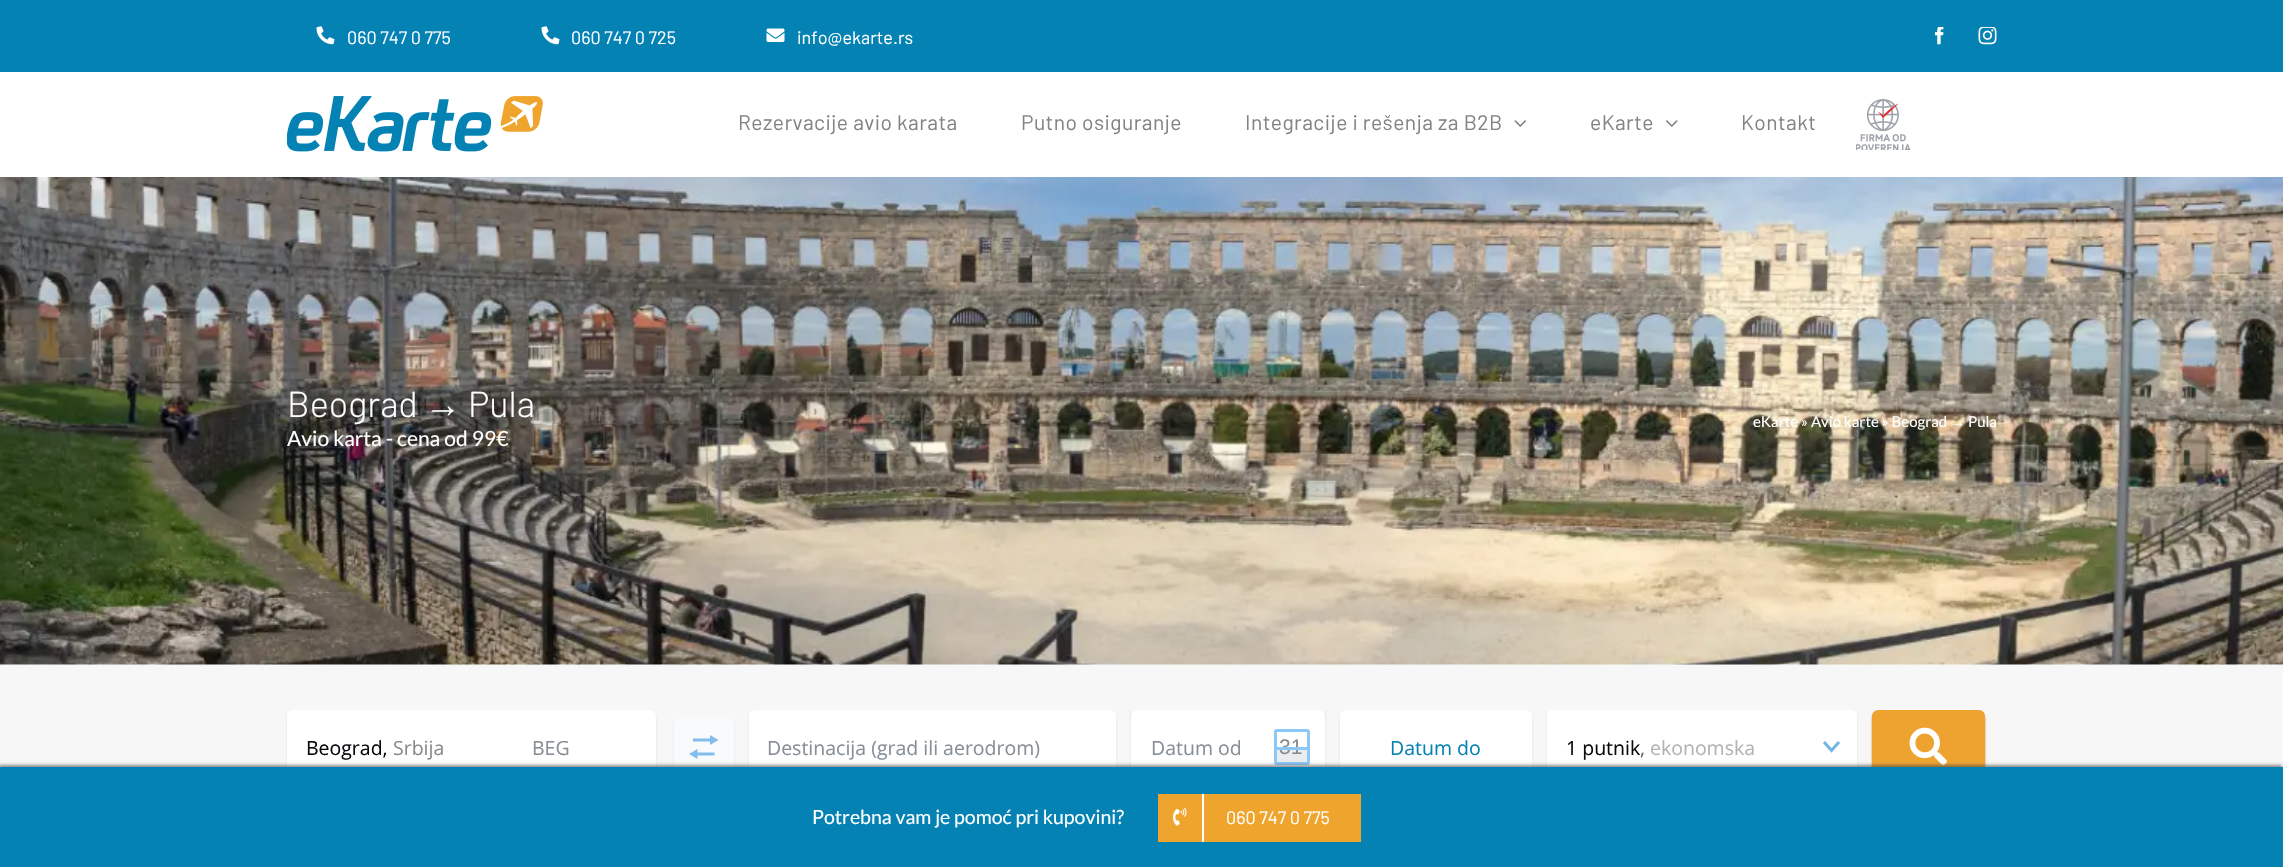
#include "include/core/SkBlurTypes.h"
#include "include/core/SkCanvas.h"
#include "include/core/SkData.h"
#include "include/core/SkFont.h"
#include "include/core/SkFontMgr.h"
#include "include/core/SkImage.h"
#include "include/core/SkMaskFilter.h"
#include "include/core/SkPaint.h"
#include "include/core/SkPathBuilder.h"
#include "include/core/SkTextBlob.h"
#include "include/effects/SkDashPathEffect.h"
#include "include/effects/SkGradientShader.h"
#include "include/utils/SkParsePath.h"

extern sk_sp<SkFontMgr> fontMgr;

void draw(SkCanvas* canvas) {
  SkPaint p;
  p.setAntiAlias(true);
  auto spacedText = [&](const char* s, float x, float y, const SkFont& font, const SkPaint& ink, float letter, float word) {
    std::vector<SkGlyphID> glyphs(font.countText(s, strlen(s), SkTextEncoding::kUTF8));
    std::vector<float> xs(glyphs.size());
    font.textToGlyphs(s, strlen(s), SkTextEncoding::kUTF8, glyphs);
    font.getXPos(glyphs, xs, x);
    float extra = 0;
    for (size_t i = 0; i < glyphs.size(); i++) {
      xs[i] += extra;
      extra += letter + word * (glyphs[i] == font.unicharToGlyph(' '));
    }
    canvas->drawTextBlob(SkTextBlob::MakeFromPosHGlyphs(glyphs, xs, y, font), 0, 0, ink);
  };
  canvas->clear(SkColorSetRGB(247, 247, 247));
  p.setColor(SkColorSetRGB(4, 130, 180));
  canvas->drawRect(SkRect::MakeLTRB(0, 0, 2283, 72), p);
  canvas->drawImageRect(SkImages::DeferredFromEncodedData(SkData::MakeFromFileName("images/1.png")), SkRect::MakeLTRB(316, 26, 335, 45), SkSamplingOptions());
  canvas->drawImageRect(SkImages::DeferredFromEncodedData(SkData::MakeFromFileName("images/1.png")), SkRect::MakeLTRB(541, 26, 560, 45), SkSamplingOptions());
  canvas->drawImageRect(SkImages::DeferredFromEncodedData(SkData::MakeFromFileName("images/2.png")), SkRect::MakeLTRB(766, 28, 785, 42), SkSamplingOptions());
  canvas->drawImageRect(SkImages::DeferredFromEncodedData(SkData::MakeFromFileName("images/3.png")), SkRect::MakeLTRB(1935, 27, 1944, 45), SkSamplingOptions());
  canvas->drawImageRect(SkImages::DeferredFromEncodedData(SkData::MakeFromFileName("images/4.png")), SkRect::MakeLTRB(1978, 27, 1997, 45), SkSamplingOptions());
  p.setColor(SK_ColorWHITE);
  canvas->drawRect(SkRect::MakeLTRB(0, 72, 2283, 177), p);
  canvas->drawImageRect(SkImages::DeferredFromEncodedData(SkData::MakeFromFileName("images/5.png")), SkRect::MakeLTRB(287, 96, 543, 152), SkSamplingOptions());
  canvas->drawImageRect(SkImages::DeferredFromEncodedData(SkData::MakeFromFileName("images/6.png")), SkRect::MakeLTRB(1514, 120, 1526, 127), SkSamplingOptions());
  canvas->drawImageRect(SkImages::DeferredFromEncodedData(SkData::MakeFromFileName("images/7.png")), SkRect::MakeLTRB(1666, 120, 1678, 127), SkSamplingOptions());
  canvas->drawImageRect(SkImages::DeferredFromEncodedData(SkData::MakeFromFileName("images/8.png")), SkRect::MakeLTRB(1856, 99, 1911, 150), SkSamplingOptions());
  canvas->drawImageRect(SkImages::DeferredFromEncodedData(SkData::MakeFromFileName("images/9.png")), SkRect::MakeLTRB(0, 177, 2283, 665), SkSamplingOptions());
  p.setColor(SkColorSetRGB(207, 221, 226));
  p.setMaskFilter(SkMaskFilter::MakeBlur(kNormal_SkBlurStyle, 1));
  canvas->drawRoundRect(SkRect::MakeLTRB(287, 713, 656, 788), 6, 6, p);
  p.setMaskFilter(nullptr);
  p.setColor(SK_ColorWHITE);
  canvas->drawRoundRect(SkRect::MakeLTRB(287, 710, 656, 785), 6, 6, p);
  p.setColor(SkColorSetRGB(207, 221, 226));
  p.setMaskFilter(SkMaskFilter::MakeBlur(kNormal_SkBlurStyle, 1));
  canvas->drawRoundRect(SkRect::MakeLTRB(674, 720, 734, 780), 6, 6, p);
  p.setMaskFilter(nullptr);
  p.setColor(SkColorSetRGB(249, 250, 251));
  canvas->drawRoundRect(SkRect::MakeLTRB(674, 717, 734, 777), 6, 6, p);
  p.setColor(SkColorSetRGB(131, 188, 238));
  canvas->drawPath(SkPathBuilder().moveTo(718.5f, 740).lineTo(710, 735).lineTo(710, 738.5f).lineTo(693, 738.5f).lineTo(693, 741.5f).lineTo(710, 741.5f).lineTo(710, 745).close().moveTo(689, 754).lineTo(697.5f, 759).lineTo(697.5f, 755.5f).lineTo(714.5f, 755.5f).lineTo(714.5f, 752.5f).lineTo(697.5f, 752.5f).lineTo(697.5f, 749).close().detach(), p);
  p.setColor(SkColorSetRGB(207, 221, 226));
  p.setMaskFilter(SkMaskFilter::MakeBlur(kNormal_SkBlurStyle, 1));
  canvas->drawRoundRect(SkRect::MakeLTRB(749, 713, 1116, 788), 6, 6, p);
  p.setMaskFilter(nullptr);
  p.setColor(SK_ColorWHITE);
  canvas->drawRoundRect(SkRect::MakeLTRB(749, 710, 1116, 785), 6, 6, p);
  p.setColor(SkColorSetRGB(207, 221, 226));
  p.setMaskFilter(SkMaskFilter::MakeBlur(kNormal_SkBlurStyle, 1));
  canvas->drawRect(SkRect::MakeLTRB(1131, 713, 1325, 788), p);
  p.setMaskFilter(nullptr);
  p.setColor(SK_ColorWHITE);
  canvas->drawRoundRect(SkRect::MakeLTRB(1131, 710, 1325, 785), 6, 6, p);
  {
    const SkColor colors[] = {SK_ColorWHITE, SK_ColorWHITE, SkColorSetRGB(236, 238, 239), SkColorSetRGB(234, 236, 237)};
    const float stops[] = {0, 0.5f, 0.51f, 0.75f};
    const SkPoint ends[] = {{1292, 732}, {1292, 762}};
    p.setShader(SkGradientShader::MakeLinear(ends, colors, stops, 4, SkTileMode::kClamp));
    p.setAlpha(255);
  }
  canvas->drawRect(SkRect::MakeLTRB(1277, 747, 1307, 762), p);
  p.setStyle(SkPaint::kStroke_Style);
  p.setStrokeWidth(3);
  p.setShader(nullptr);
  p.setColor(SkColorSetRGB(139, 200, 248));
  canvas->drawRoundRect(SkRect::MakeLTRB(1275.5f, 730.5f, 1308.5f, 763.5f), 1.5f, 1.5f, p);
  p.setStyle(SkPaint::kFill_Style);
  p.setColor(SkColorSetRGB(207, 221, 226));
  p.setMaskFilter(SkMaskFilter::MakeBlur(kNormal_SkBlurStyle, 1));
  canvas->drawRoundRect(SkRect::MakeLTRB(1340, 713, 1532, 788), 6, 6, p);
  p.setMaskFilter(nullptr);
  p.setColor(SK_ColorWHITE);
  canvas->drawRoundRect(SkRect::MakeLTRB(1340, 710, 1532, 785), 6, 6, p);
  p.setColor(SkColorSetARGB(64, 255, 255, 255));
  canvas->drawRoundRect(SkRect::MakeLTRB(1340, 710, 1532, 785), 6, 6, p);
  p.setColor(SkColorSetRGB(207, 221, 226));
  p.setMaskFilter(SkMaskFilter::MakeBlur(kNormal_SkBlurStyle, 1));
  canvas->drawRoundRect(SkRect::MakeLTRB(1547, 713, 1857, 788), 6, 6, p);
  p.setMaskFilter(nullptr);
  p.setColor(SK_ColorWHITE);
  canvas->drawRoundRect(SkRect::MakeLTRB(1547, 710, 1857, 785), 6, 6, p);
  p.setStyle(SkPaint::kStroke_Style);
  p.setStrokeWidth(2.9f);
  p.setColor(SkColorSetRGB(113, 179, 226));
  canvas->drawPath(SkPathBuilder().moveTo(1839, 742).lineTo(1831.5f, 750.5f).lineTo(1824, 742).detach(), p);
  p.setStyle(SkPaint::kFill_Style);
  p.setColor(SkColorSetRGB(203, 128, 16));
  p.setMaskFilter(SkMaskFilter::MakeBlur(kNormal_SkBlurStyle, 1));
  canvas->drawRoundRect(SkRect::MakeLTRB(1872, 713, 1985, 788), 6, 6, p);
  p.setMaskFilter(nullptr);
  p.setColor(SkColorSetRGB(238, 163, 48));
  canvas->drawRoundRect(SkRect::MakeLTRB(1872, 710, 1985, 785), 6, 6, p);
  canvas->drawImageRect(SkImages::DeferredFromEncodedData(SkData::MakeFromFileName("images/10.png")), SkRect::MakeLTRB(1909, 727, 1947, 766), SkSamplingOptions());
  p.setColor(SkColorSetARGB(153, 66, 66, 66));
  p.setMaskFilter(SkMaskFilter::MakeBlur(kNormal_SkBlurStyle, 1.5f));
  canvas->drawRect(SkRect::MakeLTRB(-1, 765, 2282, 866), p);
  p.setMaskFilter(nullptr);
  p.setColor(SkColorSetRGB(4, 130, 180));
  canvas->drawRect(SkRect::MakeLTRB(0, 767, 2283, 867), p);
  p.setColor(SkColorSetRGB(239, 165, 45));
  canvas->drawRect(SkRect::MakeLTRB(1158, 794, 1361, 842), p);
  p.setColor(SK_ColorWHITE);
  canvas->drawRect(SkRect::MakeLTRB(1202, 794, 1204, 842), p);
  canvas->drawImageRect(SkImages::DeferredFromEncodedData(SkData::MakeFromFileName("images/11.png")), SkRect::MakeLTRB(1173, 807, 1187, 826), SkSamplingOptions());
  SkFont font1(fontMgr->matchFamilyStyle("Barlow", SkFontStyle::Normal()), 18);
  font1.setSubpixel(true);
  canvas->drawString("060 747 0 775", 347, 44, font1, p);
  canvas->drawString("060 747 0 725", 571, 44, font1, p);
  canvas->drawString("info@ekarte.rs", 797, 44, font1, p);
  SkFont font2(fontMgr->matchFamilyStyle("Barlow", SkFontStyle::Normal()), 21);
  font2.setSubpixel(true);
  p.setColor(SkColorSetRGB(131, 131, 131));
  spacedText("Rezervacije avio karata", 738, 130, font2, p, 0.45f, 0);
  spacedText("Putno osiguranje", 1021, 130, font2, p, 0.45f, 0);
  spacedText("Integracije i rešenja za B2B", 1245, 130, font2, p, 0.45f, 0);
  spacedText("eKarte", 1590, 130, font2, p, 0.45f, 0);
  spacedText("Kontakt", 1741, 130, font2, p, 0.45f, 0);
  SkFont font3(fontMgr->matchFamilyStyle("Barlow", SkFontStyle(300, SkFontStyle::kNormal_Width, SkFontStyle::kUpright_Slant)), 36);
  font3.setSubpixel(true);
  p.setColor(SK_ColorWHITE);
  canvas->drawString("Beograd", 287, 417, font3, p);
  SkFont font4(fontMgr->matchFamilyStyle("Liberation Serif", SkFontStyle::Normal()), 36);
  font4.setSubpixel(true);
  canvas->drawString("→", 425, 417, font4, p);
  canvas->drawString("Pula", 468, 417, font3, p);
  SkFont font5(fontMgr->matchFamilyStyle("Lato", SkFontStyle::Normal()), 21);
  font5.setSubpixel(true);
  canvas->drawString("Avio karta - cena od 99€", 287, 446, font5, p);
  SkFont font6(fontMgr->matchFamilyStyle("Lato", SkFontStyle::Normal()), 15);
  font6.setSubpixel(true);
  canvas->drawString("eKarte » Avio karte » Beograd", 1753, 427, font6, p);
  SkFont font7(fontMgr->matchFamilyStyle("Liberation Serif", SkFontStyle::Normal()), 15);
  font7.setSubpixel(true);
  canvas->drawString("→", 1950, 427, font7, p);
  canvas->drawString("Pula", 1968, 427, font6, p);
  SkFont font8(fontMgr->matchFamilyStyle("Open Sans", SkFontStyle::Normal()), 19.5f);
  font8.setSubpixel(true);
  p.setColor(SkColorSetRGB(10, 10, 15));
  canvas->drawString("Beograd,", 306, 755, font8, p);
  p.setColor(SkColorSetRGB(138, 138, 138));
  canvas->drawString("Srbija", 393, 755, font8, p);
  p.setColor(SkColorSetRGB(134, 142, 150));
  canvas->drawString("BEG", 532, 755, font8, p);
  canvas->drawString("Destinacija (grad ili aerodrom)", 767, 755, font8, p);
  canvas->drawString("Datum od", 1151, 755, font8, p);
  SkFont font9(fontMgr->matchFamilyStyle("Liberation Sans", SkFontStyle::Normal()), 21);
  font9.setSubpixel(true);
  p.setColor(SkColorSetRGB(138, 138, 138));
  canvas->drawString("31", 1279, 754, font9, p);
  p.setColor(SkColorSetRGB(139, 200, 248));
  canvas->drawRect(SkRect::MakeLTRB(1274, 747, 1310, 750), p);
  p.setColor(SkColorSetRGB(4, 130, 180));
  canvas->drawString("Datum do", 1390, 755, font8, p);
  p.setColor(SkColorSetRGB(10, 10, 15));
  canvas->drawString("1 putnik", 1566, 755, font8, p);
  p.setColor(SkColorSetRGB(179, 179, 179));
  canvas->drawString("ekonomska", 1650, 755, font8, p);
  p.setColor(SkColorSetRGB(102, 102, 102));
  canvas->drawString(",", 1640, 755, font8, p);
  SkFont font10(fontMgr->matchFamilyStyle("Lato", SkFontStyle::Normal()), 19.5f);
  font10.setSubpixel(true);
  p.setColor(SK_ColorWHITE);
  canvas->drawString("Potrebna vam je pomoć pri kupovini?", 812, 824, font10, p);
  canvas->drawString("060 747 0 775", 1226, 824, font1, p);
}
